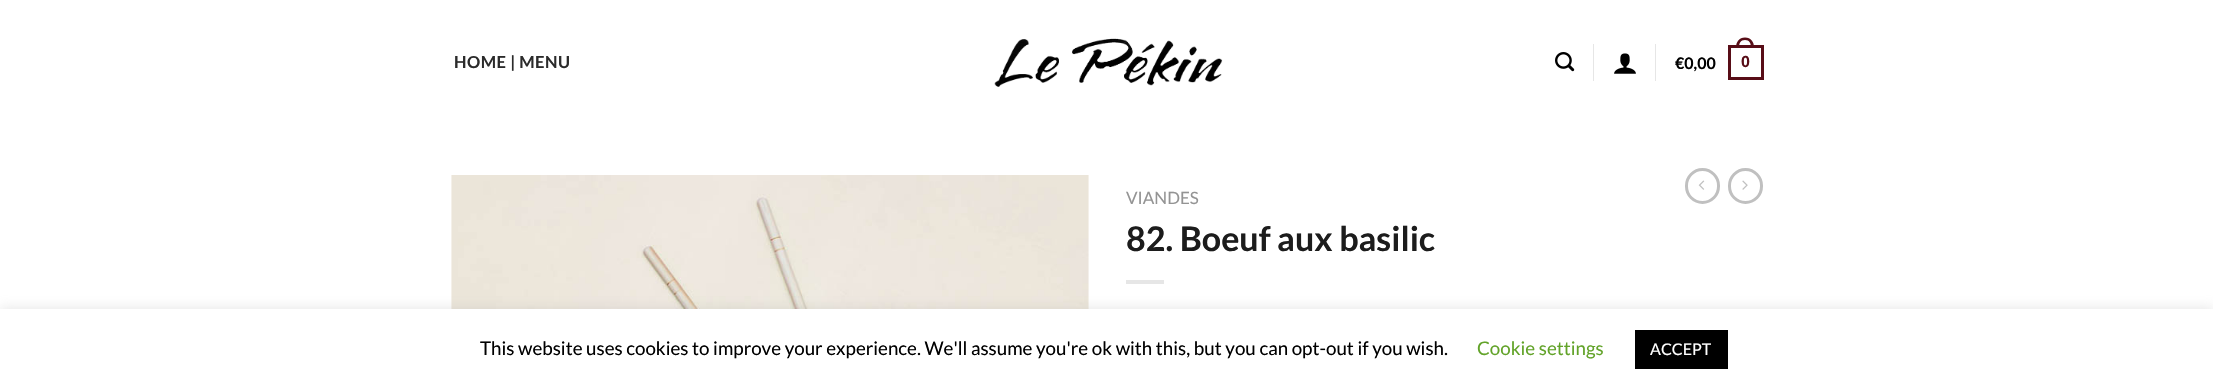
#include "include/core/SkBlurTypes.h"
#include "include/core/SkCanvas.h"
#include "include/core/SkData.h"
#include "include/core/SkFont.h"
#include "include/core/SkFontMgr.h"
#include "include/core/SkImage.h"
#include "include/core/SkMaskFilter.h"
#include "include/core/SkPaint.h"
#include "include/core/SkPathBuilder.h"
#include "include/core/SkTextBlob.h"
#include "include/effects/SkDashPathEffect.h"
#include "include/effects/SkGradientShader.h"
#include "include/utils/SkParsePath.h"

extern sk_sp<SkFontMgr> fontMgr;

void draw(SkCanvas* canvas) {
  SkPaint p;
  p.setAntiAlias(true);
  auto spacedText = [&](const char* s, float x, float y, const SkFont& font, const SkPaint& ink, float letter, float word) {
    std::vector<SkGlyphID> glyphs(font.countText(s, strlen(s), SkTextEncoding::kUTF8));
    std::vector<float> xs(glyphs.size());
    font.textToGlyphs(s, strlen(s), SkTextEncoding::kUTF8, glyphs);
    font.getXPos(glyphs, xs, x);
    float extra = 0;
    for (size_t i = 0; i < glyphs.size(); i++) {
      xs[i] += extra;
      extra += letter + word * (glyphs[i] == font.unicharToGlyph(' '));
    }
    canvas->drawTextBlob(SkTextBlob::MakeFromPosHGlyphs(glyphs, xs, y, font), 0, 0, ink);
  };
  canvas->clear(SK_ColorWHITE);
  canvas->drawImageRect(SkImages::DeferredFromEncodedData(SkData::MakeFromFileName("images/1.png")), SkRect::MakeLTRB(994, 38, 1223, 87), SkSamplingOptions());
  canvas->drawImageRect(SkImages::DeferredFromEncodedData(SkData::MakeFromFileName("images/2.png")), SkRect::MakeLTRB(1555, 52, 1575, 72), SkSamplingOptions());
  p.setColor(SkColorSetRGB(230, 230, 230));
  canvas->drawRect(SkRect::MakeLTRB(1593, 44, 1594, 81), p);
  canvas->drawImageRect(SkImages::DeferredFromEncodedData(SkData::MakeFromFileName("images/3.png")), SkRect::MakeLTRB(1614, 53, 1636, 74), SkSamplingOptions());
  canvas->drawRect(SkRect::MakeLTRB(1655, 44, 1656, 81), p);
  p.setStyle(SkPaint::kStroke_Style);
  p.setStrokeWidth(3);
  p.setColor(SkColorSetRGB(88, 13, 23));
  canvas->drawRect(SkRect::MakeLTRB(1729.5f, 46.5f, 1762.5f, 78.5f), p);
  p.setStyle(SkPaint::kFill_Style);
  canvas->drawPath(SkPathBuilder(SkPathFillType::kEvenOdd).moveTo(1745, 37.5f).cubicTo(1751, 37.5f, 1754, 42, 1754, 47.5f).lineTo(1736, 47.5f).cubicTo(1736, 42, 1739, 37.5f, 1745, 37.5f).close().moveTo(1745, 40).cubicTo(1749.5f, 40, 1751, 43.5f, 1751, 47.5f).lineTo(1739, 47.5f).cubicTo(1739, 43.5f, 1740.5f, 40, 1745, 40).close().detach(), p);
  canvas->drawImageRect(SkImages::DeferredFromEncodedData(SkData::MakeFromFileName("images/4.png")), SkRect::MakeLTRB(451, 175, 1089, 309), SkSamplingOptions());
  p.setColor(SkColorSetRGB(230, 230, 230));
  canvas->drawRect(SkRect::MakeLTRB(1126, 280, 1164, 284), p);
  p.setStyle(SkPaint::kStroke_Style);
  p.setColor(SkColorSetRGB(192, 192, 192));
  canvas->drawRoundRect(SkRect::MakeLTRB(1686.5f, 169.5f, 1718.5f, 202.5f), 16, 16, p);
  canvas->drawImageRect(SkImages::DeferredFromEncodedData(SkData::MakeFromFileName("images/5.png")), SkRect::MakeLTRB(1698, 180, 1705, 190), SkSamplingOptions());
  canvas->drawRoundRect(SkRect::MakeLTRB(1729.5f, 169.5f, 1761.5f, 202.5f), 16, 16, p);
  canvas->drawImageRect(SkImages::DeferredFromEncodedData(SkData::MakeFromFileName("images/6.png")), SkRect::MakeLTRB(1742, 180, 1748, 190), SkSamplingOptions());
  p.setStyle(SkPaint::kFill_Style);
  p.setColor(SkColorSetARGB(77, 172, 171, 171));
  p.setMaskFilter(SkMaskFilter::MakeBlur(kNormal_SkBlurStyle, 6));
  canvas->drawRect(SkRect::MakeLTRB(0, 308, 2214, 389), p);
  p.setMaskFilter(nullptr);
  p.setColor(SK_ColorWHITE);
  canvas->drawRect(SkRect::MakeLTRB(0, 309, 2213, 389), p);
  p.setColor(SK_ColorBLACK);
  canvas->drawRect(SkRect::MakeLTRB(1635, 330, 1728, 369), p);
  SkFont font1(fontMgr->matchFamilyStyle("Lato", SkFontStyle::Bold()), 16.5f);
  font1.setSubpixel(true);
  p.setColor(SkColorSetRGB(43, 43, 43));
  spacedText("HOME | MENU", 454, 68, font1, p, 0.5f, 0);
  SkFont font2(fontMgr->matchFamilyStyle("Lato", SkFontStyle::Bold()), 16);
  font2.setSubpixel(true);
  p.setColor(SK_ColorBLACK);
  canvas->drawString("€0,00", 1675, 69, font2, p);
  SkFont font3(fontMgr->matchFamilyStyle("Liberation Sans", SkFontStyle::Bold()), 16);
  font3.setSubpixel(true);
  p.setColor(SkColorSetRGB(88, 13, 23));
  canvas->drawString("0", 1741, 67, font3, p);
  SkFont font4(fontMgr->matchFamilyStyle("Lato", SkFontStyle::Normal()), 17);
  font4.setSubpixel(true);
  p.setColor(SkColorSetRGB(148, 148, 148));
  canvas->drawString("VIANDES", 1126, 204, font4, p);
  SkFont font5(fontMgr->matchFamilyStyle("Lato", SkFontStyle::Bold()), 34);
  font5.setSubpixel(true);
  p.setColor(SkColorSetRGB(28, 28, 28));
  canvas->drawString("82. Boeuf aux basilic", 1126, 251, font5, p);
  SkFont font6(fontMgr->matchFamilyStyle("Lato", SkFontStyle::Normal()), 18.75f);
  font6.setSubpixel(true);
  p.setColor(SK_ColorBLACK);
  canvas->drawString("This website uses cookies to improve your experience. We'll assume you're ok with this, but you can opt-out if you wish.", 480, 355, font6, p);
  p.setColor(SkColorSetRGB(98, 163, 41));
  canvas->drawString("Cookie settings", 1477, 355, font6, p);
  SkFont font7(fontMgr->matchFamilyStyle("Lato", SkFontStyle::Normal()), 16);
  font7.setSubpixel(true);
  p.setColor(SK_ColorWHITE);
  canvas->drawString("ACCEPT", 1650, 355, font7, p);
}
